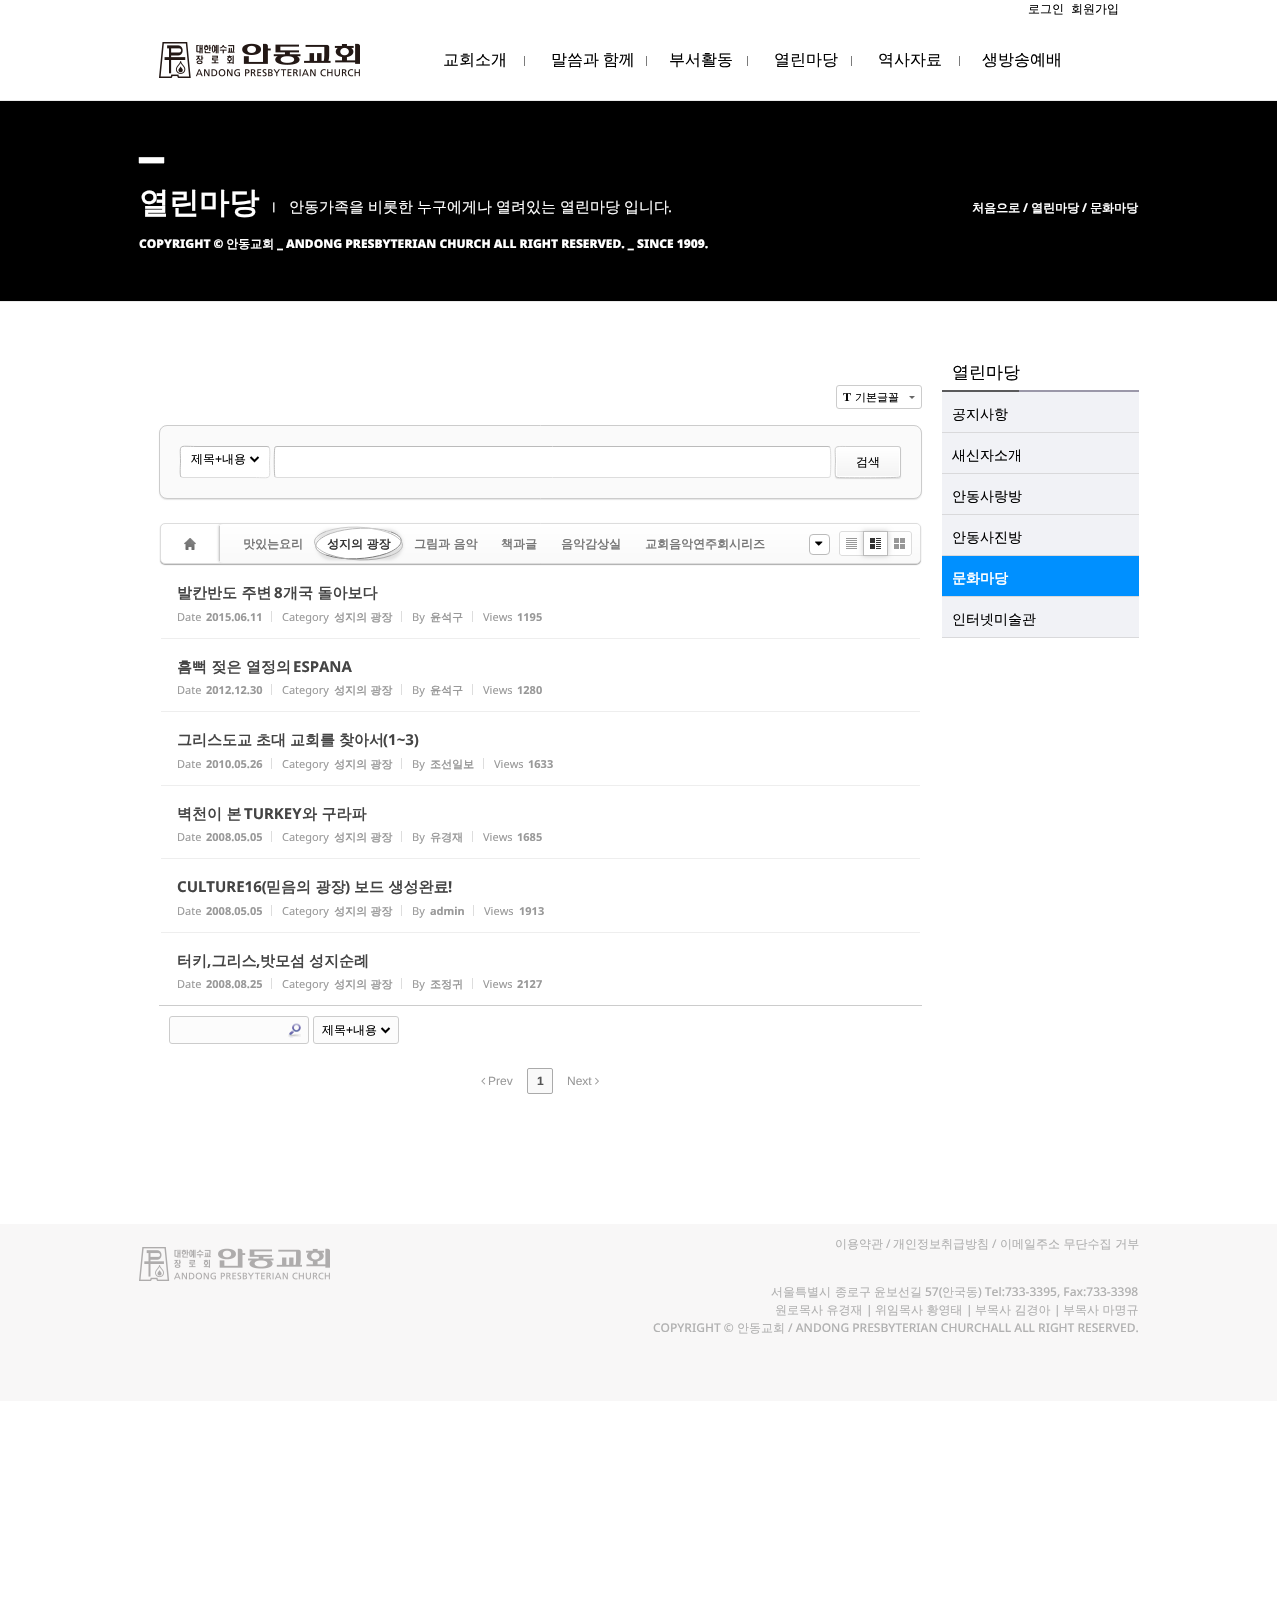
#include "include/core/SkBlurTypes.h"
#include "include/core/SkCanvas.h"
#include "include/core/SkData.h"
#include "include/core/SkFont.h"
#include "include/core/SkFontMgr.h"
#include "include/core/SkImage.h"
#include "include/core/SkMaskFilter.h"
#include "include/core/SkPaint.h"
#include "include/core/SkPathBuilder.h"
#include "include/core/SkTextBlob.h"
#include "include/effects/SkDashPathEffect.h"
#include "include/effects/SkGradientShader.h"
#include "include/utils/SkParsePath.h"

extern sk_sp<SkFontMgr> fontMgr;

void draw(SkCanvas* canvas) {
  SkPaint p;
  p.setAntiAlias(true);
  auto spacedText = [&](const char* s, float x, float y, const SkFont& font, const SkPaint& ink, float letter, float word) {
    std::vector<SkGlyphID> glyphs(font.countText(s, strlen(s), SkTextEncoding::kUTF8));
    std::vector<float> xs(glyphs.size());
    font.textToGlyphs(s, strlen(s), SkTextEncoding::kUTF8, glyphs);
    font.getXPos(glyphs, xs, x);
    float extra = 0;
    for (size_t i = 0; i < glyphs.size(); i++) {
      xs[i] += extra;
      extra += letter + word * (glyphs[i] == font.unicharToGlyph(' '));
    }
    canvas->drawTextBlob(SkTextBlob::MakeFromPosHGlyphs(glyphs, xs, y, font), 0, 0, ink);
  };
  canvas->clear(SK_ColorWHITE);
  canvas->drawImageRect(SkImages::DeferredFromEncodedData(SkData::MakeFromFileName("images/1.png")), SkRect::MakeLTRB(159, 42, 360, 78), SkSamplingOptions());
  p.setColor(SkColorSetRGB(123, 123, 123));
  canvas->drawRect(SkRect::MakeLTRB(524, 56, 525, 66), p);
  canvas->drawRect(SkRect::MakeLTRB(646, 56, 647, 66), p);
  canvas->drawRect(SkRect::MakeLTRB(747, 56, 748, 66), p);
  canvas->drawRect(SkRect::MakeLTRB(851, 56, 852, 66), p);
  canvas->drawRect(SkRect::MakeLTRB(959, 56, 960, 66), p);
  p.setColor(SkColorSetRGB(234, 234, 234));
  canvas->drawRect(SkRect::MakeLTRB(0, 100, 1277, 101), p);
  canvas->drawRect(SkRect::MakeLTRB(0, 301, 1277, 302), p);
  p.setStyle(SkPaint::kStroke_Style);
  p.setStrokeWidth(1);
  p.setColor(SkColorSetRGB(204, 204, 204));
  canvas->drawRoundRect(SkRect::MakeLTRB(836.5f, 385.5f, 921.5f, 408.5f), 2.5f, 2.5f, p);
  p.setStyle(SkPaint::kFill_Style);
  p.setColor(SkColorSetRGB(102, 102, 102));
  canvas->drawPath(SkPathBuilder().moveTo(909, 396).lineTo(915, 396).lineTo(912, 399).close().detach(), p);
  p.setColor(SkColorSetARGB(26, 0, 0, 0));
  p.setMaskFilter(SkMaskFilter::MakeBlur(kNormal_SkBlurStyle, 0.5f));
  canvas->drawRoundRect(SkRect::MakeLTRB(159, 426, 922, 500), 8, 8, p);
  p.setMaskFilter(nullptr);
  p.setColor(SkColorSetRGB(250, 250, 250));
  canvas->drawRoundRect(SkRect::MakeLTRB(159.5f, 425.5f, 921.5f, 498.5f), 7.5f, 7.5f, p);
  p.setStyle(SkPaint::kStroke_Style);
  p.setColor(SkColorSetRGB(204, 204, 204));
  canvas->drawRoundRect(SkRect::MakeLTRB(159.5f, 425.5f, 921.5f, 498.5f), 7.5f, 7.5f, p);
  p.setStyle(SkPaint::kFill_Style);
  p.setColor(SK_ColorWHITE);
  canvas->drawRoundRect(SkRect::MakeLTRB(180, 446, 270, 478), 3, 3, p);
  p.setStyle(SkPaint::kStroke_Style);
  p.setColor(SkColorSetRGB(221, 221, 221));
  canvas->drawPath(SkPathBuilder().moveTo(269, 447).cubicTo(270.5f, 449, 269.5f, 459.5f, 269.5f, 462).cubicTo(269.5f, 481, 273, 477.5f, 253, 477.5f).lineTo(183, 477.5f).lineTo(181, 477).detach(), p);
  p.setColor(SkColorSetRGB(187, 187, 187));
  canvas->drawPath(SkPathBuilder().moveTo(181, 477).cubicTo(179.5f, 475, 180.5f, 464.5f, 180.5f, 462).cubicTo(180.5f, 443, 177, 446.5f, 197, 446.5f).lineTo(267, 446.5f).lineTo(269, 447).detach(), p);
  p.setStrokeWidth(2);
  p.setColor(SK_ColorBLACK);
  canvas->drawPath(SkPathBuilder().moveTo(250.5f, 457).lineTo(254.5f, 461).lineTo(258.5f, 457).detach(), p);
  p.setStyle(SkPaint::kFill_Style);
  p.setColor(SK_ColorWHITE);
  canvas->drawRoundRect(SkRect::MakeLTRB(274, 446, 831, 478), 3, 3, p);
  p.setStyle(SkPaint::kStroke_Style);
  p.setStrokeWidth(1);
  p.setColor(SkColorSetRGB(221, 221, 221));
  canvas->drawPath(SkPathBuilder().moveTo(830, 447).cubicTo(831, 448.5f, 831, 475.5f, 830, 477).lineTo(828, 477.5f).lineTo(277, 477.5f).lineTo(275, 477).detach(), p);
  p.setColor(SkColorSetRGB(187, 187, 187));
  canvas->drawPath(SkPathBuilder().moveTo(275, 477).cubicTo(274, 475.5f, 274, 448.5f, 275, 447).lineTo(277, 446.5f).lineTo(828, 446.5f).lineTo(830, 447).detach(), p);
  p.setStyle(SkPaint::kFill_Style);
  p.setColor(SkColorSetARGB(26, 0, 0, 0));
  p.setMaskFilter(SkMaskFilter::MakeBlur(kNormal_SkBlurStyle, 0.5f));
  canvas->drawRoundRect(SkRect::MakeLTRB(835, 447, 901, 479), 3, 3, p);
  p.setMaskFilter(nullptr);
  canvas->save();
  canvas->clipPath(SkPathBuilder().moveTo(838, 446).lineTo(898, 446).cubicTo(899.5f, 446, 901, 447.5f, 901, 449).lineTo(901, 475).cubicTo(901, 476.5f, 899.5f, 478, 898, 478).lineTo(838, 478).cubicTo(836.5f, 478, 835, 476.5f, 835, 475).lineTo(835, 449).cubicTo(835, 447.5f, 836.5f, 446, 838, 446).close().detach(), true);
  {
    const SkColor colors[] = {SK_ColorWHITE, SkColorSetRGB(243, 243, 243)};
    const float stops[] = {0, 1};
    const SkPoint ends[] = {{868, 417}, {868, 447}};
    p.setShader(SkGradientShader::MakeLinear(ends, colors, stops, 2, SkTileMode::kClamp));
    p.setAlpha(255);
  }
  canvas->drawRect(SkRect::MakeLTRB(835, 446, 901, 447), p);
  {
    const SkColor colors[] = {SK_ColorWHITE, SkColorSetRGB(243, 243, 243)};
    const float stops[] = {0, 1};
    const SkPoint ends[] = {{868, 447}, {868, 477}};
    p.setShader(SkGradientShader::MakeLinear(ends, colors, stops, 2, SkTileMode::kClamp));
    p.setAlpha(255);
  }
  canvas->drawRect(SkRect::MakeLTRB(835, 447, 901, 477), p);
  {
    const SkColor colors[] = {SK_ColorWHITE, SkColorSetRGB(243, 243, 243)};
    const float stops[] = {0, 1};
    const SkPoint ends[] = {{868, 477}, {868, 507}};
    p.setShader(SkGradientShader::MakeLinear(ends, colors, stops, 2, SkTileMode::kClamp));
    p.setAlpha(255);
  }
  canvas->drawRect(SkRect::MakeLTRB(835, 477, 901, 478), p);
  canvas->restore();
  p.setStyle(SkPaint::kStroke_Style);
  p.setShader(nullptr);
  p.setColor(SK_ColorWHITE);
  canvas->drawRoundRect(SkRect::MakeLTRB(836.5f, 447.5f, 899.5f, 476.5f), 1.5f, 1.5f, p);
  p.setColor(SkColorSetRGB(198, 198, 198));
  canvas->drawPath(SkPathBuilder().moveTo(900, 447).cubicTo(900, 447.5f, 900.5f, 448.5f, 900.5f, 449).lineTo(900.5f, 475).cubicTo(900.5f, 475.5f, 900, 476.5f, 900, 477).detach(), p);
  p.setColor(SkColorSetRGB(195, 195, 195));
  canvas->drawPath(SkPathBuilder().moveTo(900, 477).lineTo(899.5f, 477).cubicTo(898.5f, 478, 843, 478, 838, 477.5f).lineTo(836, 477).detach(), p);
  p.setColor(SkColorSetRGB(204, 204, 204));
  canvas->drawPath(SkPathBuilder().moveTo(836, 477).cubicTo(834.5f, 475, 835.5f, 464.5f, 835.5f, 462).cubicTo(835.5f, 445, 832, 446.5f, 848, 446.5f).lineTo(898, 446.5f).lineTo(900, 447).detach(), p);
  p.setStyle(SkPaint::kFill_Style);
  p.setColor(SkColorSetRGB(170, 170, 170));
  p.setMaskFilter(SkMaskFilter::MakeBlur(kNormal_SkBlurStyle, 0.5f));
  canvas->drawRoundRect(SkRect::MakeLTRB(160, 524, 921, 565), 5, 5, p);
  p.setMaskFilter(nullptr);
  p.setColor(SK_ColorWHITE);
  canvas->drawRoundRect(SkRect::MakeLTRB(160.5f, 523.5f, 920.5f, 563.5f), 4.5f, 4.5f, p);
  p.setStyle(SkPaint::kStroke_Style);
  p.setColor(SkColorSetRGB(221, 221, 221));
  canvas->drawRoundRect(SkRect::MakeLTRB(160.5f, 523.5f, 920.5f, 563.5f), 4.5f, 4.5f, p);
  canvas->drawImageRect(SkImages::DeferredFromEncodedData(SkData::MakeFromFileName("images/2.png")), SkRect::MakeLTRB(184, 538, 196, 550), SkSamplingOptions());
  p.setStyle(SkPaint::kFill_Style);
  p.setMaskFilter(SkMaskFilter::MakeBlur(kNormal_SkBlurStyle, 1));
  canvas->drawRoundRect(SkRect::MakeLTRB(218, 524, 919, 563), 4, 4, p);
  p.setMaskFilter(nullptr);
  {
    const SkColor colors[] = {SK_ColorWHITE, SkColorSetRGB(249, 249, 249)};
    const float stops[] = {0, 1};
    const SkPoint ends[] = {{570, 524}, {570, 563}};
    p.setShader(SkGradientShader::MakeLinear(ends, colors, stops, 2, SkTileMode::kClamp));
    p.setAlpha(255);
  }
  canvas->drawRoundRect(SkRect::MakeLTRB(219, 524, 920, 563), 4, 4, p);
  p.setShader(nullptr);
  p.setColor(SkColorSetRGB(204, 204, 204));
  canvas->drawRect(SkRect::MakeLTRB(219, 526, 220, 561), p);
  p.setColor(SkColorSetARGB(26, 0, 0, 0));
  p.setMaskFilter(SkMaskFilter::MakeBlur(kNormal_SkBlurStyle, 1.5f));
  canvas->drawRoundRect(SkRect::MakeLTRB(316, 529, 403, 560), 18, 18, p);
  p.setMaskFilter(nullptr);
  p.setColor(SK_ColorWHITE);
  canvas->drawPath(SkPathBuilder().moveTo(366, 528).cubicTo(386, 528, 402, 534, 402, 541).cubicTo(402, 551, 379, 559, 351, 559).cubicTo(331, 559, 315, 553, 315, 546).cubicTo(315, 536, 338, 528, 366, 528).close().detach(), p);
  p.setStyle(SkPaint::kStroke_Style);
  p.setColor(SkColorSetRGB(187, 187, 187));
  canvas->drawPath(SkPathBuilder().moveTo(330.5f, 533.5f).cubicTo(347.5f, 527.5f, 373.5f, 526, 391, 532).detach(), p);
  p.setColor(SkColorSetRGB(136, 136, 136));
  canvas->drawPath(SkPathBuilder().moveTo(391, 532).cubicTo(409.5f, 538.5f, 400, 548.5f, 386.5f, 553.5f).detach(), p);
  p.setColor(SkColorSetRGB(119, 119, 119));
  canvas->drawPath(SkPathBuilder().moveTo(386.5f, 553.5f).cubicTo(369.5f, 559.5f, 343.5f, 561, 326, 555).detach(), p);
  p.setColor(SkColorSetRGB(170, 170, 170));
  canvas->drawPath(SkPathBuilder().moveTo(326, 555).cubicTo(307.5f, 548.5f, 317, 538.5f, 330.5f, 533.5f).detach(), p);
  p.setColor(SkColorSetRGB(204, 204, 204));
  canvas->drawPath(SkPathBuilder().moveTo(326, 531.5f).cubicTo(344, 525, 370, 526, 388, 532.5f).detach(), p);
  p.setStyle(SkPaint::kFill_Style);
  p.setColor(SK_ColorWHITE);
  canvas->drawRoundRect(SkRect::MakeLTRB(809.5f, 534.5f, 829.5f, 554.5f), 3.5f, 3.5f, p);
  p.setStyle(SkPaint::kStroke_Style);
  p.setColor(SkColorSetRGB(187, 187, 187));
  canvas->drawRoundRect(SkRect::MakeLTRB(809.5f, 534.5f, 829.5f, 554.5f), 3.5f, 3.5f, p);
  canvas->drawImageRect(SkImages::DeferredFromEncodedData(SkData::MakeFromFileName("images/3.png")), SkRect::MakeLTRB(815, 541, 823, 546), SkSamplingOptions());
  p.setStyle(SkPaint::kFill_Style);
  p.setColor(SK_ColorWHITE);
  canvas->drawRect(SkRect::MakeLTRB(840, 540, 912, 556), p);
  p.setStyle(SkPaint::kStroke_Style);
  p.setColor(SkColorSetARGB(128, 187, 187, 187));
  canvas->drawPath(SkPathBuilder().moveTo(842, 531.5f).lineTo(863.5f, 531.5f).lineTo(863.5f, 555.5f).lineTo(842, 555.5f).cubicTo(840.5f, 555.5f, 839.5f, 554.5f, 839.5f, 553).lineTo(839.5f, 534).cubicTo(839.5f, 532.5f, 840.5f, 531.5f, 842, 531.5f).close().detach(), p);
  canvas->drawImageRect(SkImages::DeferredFromEncodedData(SkData::MakeFromFileName("images/4.png")), SkRect::MakeLTRB(846, 538, 857, 549), SkSamplingOptions());
  canvas->save();
  canvas->clipPath(SkPathBuilder(SkPathFillType::kEvenOdd).moveTo(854, 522).lineTo(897, 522).lineTo(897, 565).lineTo(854, 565).close().moveTo(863, 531).lineTo(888, 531).lineTo(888, 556).lineTo(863, 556).close().detach(), true);
  p.setStyle(SkPaint::kFill_Style);
  p.setColor(SkColorSetARGB(51, 0, 0, 0));
  p.setMaskFilter(SkMaskFilter::MakeBlur(kNormal_SkBlurStyle, 2.5f));
  canvas->drawRect(SkRect::MakeLTRB(863, 531, 888, 556), p);
  p.setMaskFilter(nullptr);
  canvas->restore();
  p.setStyle(SkPaint::kStroke_Style);
  p.setColor(SkColorSetRGB(187, 187, 187));
  canvas->drawRect(SkRect::MakeLTRB(863.5f, 531.5f, 887.5f, 555.5f), p);
  canvas->drawImageRect(SkImages::DeferredFromEncodedData(SkData::MakeFromFileName("images/5.png")), SkRect::MakeLTRB(870, 538, 881, 549), SkSamplingOptions());
  p.setColor(SkColorSetARGB(128, 187, 187, 187));
  canvas->drawPath(SkPathBuilder().moveTo(887.5f, 531.5f).lineTo(909, 531.5f).cubicTo(910.5f, 531.5f, 911.5f, 532.5f, 911.5f, 534).lineTo(911.5f, 553).cubicTo(911.5f, 554.5f, 910.5f, 555.5f, 909, 555.5f).lineTo(887.5f, 555.5f).close().detach(), p);
  canvas->drawImageRect(SkImages::DeferredFromEncodedData(SkData::MakeFromFileName("images/6.png")), SkRect::MakeLTRB(894, 538, 905, 549), SkSamplingOptions());
  p.setStyle(SkPaint::kFill_Style);
  p.setColor(SkColorSetRGB(238, 238, 238));
  canvas->drawRect(SkRect::MakeLTRB(161, 638, 920, 639), p);
  p.setColor(SkColorSetRGB(221, 221, 221));
  canvas->drawRect(SkRect::MakeLTRB(271, 611, 272, 622), p);
  canvas->drawRect(SkRect::MakeLTRB(401, 611, 402, 622), p);
  canvas->drawRect(SkRect::MakeLTRB(472, 611, 473, 622), p);
  p.setColor(SkColorSetRGB(238, 238, 238));
  canvas->drawRect(SkRect::MakeLTRB(161, 711, 920, 712), p);
  p.setColor(SkColorSetRGB(221, 221, 221));
  canvas->drawRect(SkRect::MakeLTRB(271, 684, 272, 695), p);
  canvas->drawRect(SkRect::MakeLTRB(401, 684, 402, 695), p);
  canvas->drawRect(SkRect::MakeLTRB(472, 684, 473, 695), p);
  p.setColor(SkColorSetRGB(238, 238, 238));
  canvas->drawRect(SkRect::MakeLTRB(161, 785, 920, 786), p);
  p.setColor(SkColorSetRGB(221, 221, 221));
  canvas->drawRect(SkRect::MakeLTRB(271, 758, 272, 769), p);
  canvas->drawRect(SkRect::MakeLTRB(401, 758, 402, 769), p);
  canvas->drawRect(SkRect::MakeLTRB(483, 758, 484, 769), p);
  p.setColor(SkColorSetRGB(238, 238, 238));
  canvas->drawRect(SkRect::MakeLTRB(161, 858, 920, 859), p);
  p.setColor(SkColorSetRGB(221, 221, 221));
  canvas->drawRect(SkRect::MakeLTRB(271, 831, 272, 842), p);
  canvas->drawRect(SkRect::MakeLTRB(401, 831, 402, 842), p);
  canvas->drawRect(SkRect::MakeLTRB(472, 831, 473, 842), p);
  p.setColor(SkColorSetRGB(238, 238, 238));
  canvas->drawRect(SkRect::MakeLTRB(161, 932, 920, 933), p);
  p.setColor(SkColorSetRGB(221, 221, 221));
  canvas->drawRect(SkRect::MakeLTRB(271, 905, 272, 916), p);
  canvas->drawRect(SkRect::MakeLTRB(401, 905, 402, 916), p);
  canvas->drawRect(SkRect::MakeLTRB(473, 905, 474, 916), p);
  canvas->drawRect(SkRect::MakeLTRB(271, 978, 272, 989), p);
  canvas->drawRect(SkRect::MakeLTRB(401, 978, 402, 989), p);
  canvas->drawRect(SkRect::MakeLTRB(472, 978, 473, 989), p);
  p.setColor(SkColorSetRGB(204, 204, 204));
  canvas->drawRect(SkRect::MakeLTRB(159, 1005, 922, 1006), p);
  p.setColor(SkColorSetRGB(252, 252, 252));
  canvas->drawRoundRect(SkRect::MakeLTRB(169.5f, 1016.5f, 308.5f, 1043.5f), 2.5f, 2.5f, p);
  p.setStyle(SkPaint::kStroke_Style);
  p.setColor(SkColorSetRGB(204, 204, 204));
  canvas->drawRoundRect(SkRect::MakeLTRB(169.5f, 1016.5f, 308.5f, 1043.5f), 2.5f, 2.5f, p);
  canvas->drawImageRect(SkImages::DeferredFromEncodedData(SkData::MakeFromFileName("images/7.png")), SkRect::MakeLTRB(288, 1023, 301, 1038), SkSamplingOptions());
  p.setStyle(SkPaint::kFill_Style);
  p.setColor(SkColorSetRGB(252, 252, 252));
  canvas->drawRoundRect(SkRect::MakeLTRB(313.5f, 1016.5f, 398.5f, 1043.5f), 2.5f, 2.5f, p);
  p.setStyle(SkPaint::kStroke_Style);
  p.setColor(SkColorSetRGB(204, 204, 204));
  canvas->drawRoundRect(SkRect::MakeLTRB(313.5f, 1016.5f, 398.5f, 1043.5f), 2.5f, 2.5f, p);
  p.setStrokeWidth(2);
  p.setColor(SK_ColorBLACK);
  canvas->drawPath(SkPathBuilder().moveTo(381.5f, 1028).lineTo(385.5f, 1032).lineTo(389.5f, 1028).detach(), p);
  canvas->drawImageRect(SkImages::DeferredFromEncodedData(SkData::MakeFromFileName("images/8.png")), SkRect::MakeLTRB(481, 1077, 486, 1085), SkSamplingOptions());
  p.setStyle(SkPaint::kFill_Style);
  p.setColor(SkColorSetRGB(249, 249, 249));
  canvas->drawRoundRect(SkRect::MakeLTRB(527.5f, 1068.5f, 552.5f, 1093.5f), 1.5f, 1.5f, p);
  p.setStyle(SkPaint::kStroke_Style);
  p.setStrokeWidth(1);
  p.setColor(SkColorSetRGB(170, 170, 170));
  canvas->drawRoundRect(SkRect::MakeLTRB(527.5f, 1068.5f, 552.5f, 1093.5f), 1.5f, 1.5f, p);
  canvas->drawImageRect(SkImages::DeferredFromEncodedData(SkData::MakeFromFileName("images/9.png")), SkRect::MakeLTRB(595, 1077, 599, 1085), SkSamplingOptions());
  p.setStyle(SkPaint::kFill_Style);
  p.setColor(SkColorSetRGB(90, 90, 92));
  canvas->drawRect(SkRect::MakeLTRB(942, 390, 1019, 392), p);
  p.setColor(SkColorSetRGB(155, 152, 169));
  canvas->drawRect(SkRect::MakeLTRB(1019, 390, 1139, 392), p);
  p.setColor(SkColorSetRGB(241, 242, 246));
  canvas->drawRect(SkRect::MakeLTRB(942, 392, 1139, 432), p);
  p.setColor(SkColorSetRGB(217, 217, 219));
  canvas->drawRect(SkRect::MakeLTRB(942, 432, 1139, 433), p);
  p.setColor(SkColorSetRGB(241, 242, 246));
  canvas->drawRect(SkRect::MakeLTRB(942, 433, 1139, 473), p);
  p.setColor(SkColorSetRGB(217, 217, 219));
  canvas->drawRect(SkRect::MakeLTRB(942, 473, 1139, 474), p);
  p.setColor(SkColorSetRGB(241, 242, 246));
  canvas->drawRect(SkRect::MakeLTRB(942, 474, 1139, 514), p);
  p.setColor(SkColorSetRGB(217, 217, 219));
  canvas->drawRect(SkRect::MakeLTRB(942, 514, 1139, 515), p);
  p.setColor(SkColorSetRGB(241, 242, 246));
  canvas->drawRect(SkRect::MakeLTRB(942, 515, 1139, 555), p);
  p.setColor(SkColorSetRGB(217, 217, 219));
  canvas->drawRect(SkRect::MakeLTRB(942, 555, 1139, 556), p);
  p.setColor(SkColorSetRGB(0, 144, 255));
  canvas->drawRect(SkRect::MakeLTRB(942, 556, 1139, 596), p);
  p.setColor(SkColorSetRGB(217, 217, 219));
  canvas->drawRect(SkRect::MakeLTRB(942, 596, 1139, 597), p);
  p.setColor(SkColorSetRGB(241, 242, 246));
  canvas->drawRect(SkRect::MakeLTRB(942, 597, 1139, 637), p);
  p.setColor(SkColorSetRGB(217, 217, 219));
  canvas->drawRect(SkRect::MakeLTRB(942, 637, 1139, 638), p);
  p.setColor(SkColorSetRGB(248, 247, 247));
  canvas->drawRect(SkRect::MakeLTRB(0, 1224, 1277, 1401), p);
  canvas->drawImageRect(SkImages::DeferredFromEncodedData(SkData::MakeFromFileName("images/10.png")), SkRect::MakeLTRB(139, 1247, 330, 1281), SkSamplingOptions());
  p.setColor(SK_ColorBLACK);
  canvas->drawRect(SkRect::MakeLTRB(0, 101, 1277, 301), p);
  SkFont font1(fontMgr->matchFamilyStyle("WenQuanYi Zen Hei", SkFontStyle(500, SkFontStyle::kNormal_Width, SkFontStyle::kUpright_Slant)), 12);
  font1.setSubpixel(true);
  canvas->drawString("로그인", 1028, 13, font1, p);
  canvas->drawString("회원가입", 1071, 13, font1, p);
  SkFont font2(fontMgr->matchFamilyStyle("WenQuanYi Zen Hei", SkFontStyle(500, SkFontStyle::kNormal_Width, SkFontStyle::kUpright_Slant)), 16);
  font2.setSubpixel(true);
  canvas->drawString("교회소개", 443, 65, font2, p);
  spacedText("말씀과 함께", 551, 65, font2, p, 0, -1);
  canvas->drawString("부서활동", 669, 65, font2, p);
  canvas->drawString("열린마당", 774, 65, font2, p);
  canvas->drawString("역사자료", 878, 65, font2, p);
  canvas->drawString("생방송예배", 982, 65, font2, p);
  SkFont font3(fontMgr->matchFamilyStyle("Noto Sans", SkFontStyle(900, SkFontStyle::kNormal_Width, SkFontStyle::kUpright_Slant)), 50);
  font3.setSubpixel(true);
  p.setColor(SK_ColorWHITE);
  canvas->drawString("_", 139, 154, font3, p);
  SkFont font4(fontMgr->matchFamilyStyle("WenQuanYi Zen Hei", SkFontStyle::Bold()), 30);
  font4.setSubpixel(true);
  canvas->drawString("열린마당", 139, 213, font4, p);
  SkFont font5(fontMgr->matchFamilyStyle("Noto Sans", SkFontStyle::Bold()), 10);
  font5.setSubpixel(true);
  canvas->drawString("|", 271, 210, font5, p);
  SkFont font6(fontMgr->matchFamilyStyle("WenQuanYi Zen Hei", SkFontStyle(500, SkFontStyle::kNormal_Width, SkFontStyle::kUpright_Slant)), 15);
  font6.setSubpixel(true);
  spacedText("안동가족을 비롯한 누구에게나 열려있는 열린마당 입니다", 289, 212, font6, p, 0, -0.5f);
  SkFont font7(fontMgr->matchFamilyStyle("Noto Sans", SkFontStyle::Normal()), 15);
  font7.setSubpixel(true);
  canvas->drawString(".", 668, 212, font7, p);
  SkFont font8(fontMgr->matchFamilyStyle("WenQuanYi Zen Hei", SkFontStyle::Bold()), 12);
  font8.setSubpixel(true);
  canvas->drawString("처음으로", 972, 212, font8, p);
  SkFont font9(fontMgr->matchFamilyStyle("Noto Sans", SkFontStyle::Bold()), 12);
  font9.setSubpixel(true);
  canvas->drawString("/", 1023, 212, font9, p);
  canvas->drawString("열린마당", 1031, 212, font8, p);
  canvas->drawString("/", 1082, 212, font9, p);
  canvas->drawString("문화마당", 1090, 212, font8, p);
  SkFont font10(fontMgr->matchFamilyStyle("Noto Sans", SkFontStyle(900, SkFontStyle::kNormal_Width, SkFontStyle::kUpright_Slant)), 12);
  font10.setSubpixel(true);
  canvas->drawString("COPYRIGHT ©", 139, 248, font10, p);
  canvas->drawString("안동교회", 226, 248, font8, p);
  canvas->drawString("_ ANDONG PRESBYTERIAN CHURCH ALL RIGHT RESERVED. _ SINCE 1909.", 277, 248, font10, p);
  SkFont font11(fontMgr->matchFamilyStyle("Liberation Serif", SkFontStyle::Bold()), 12);
  font11.setSubpixel(true);
  p.setColor(SK_ColorBLACK);
  canvas->drawString("T", 843, 401, font11, p);
  SkFont font12(fontMgr->matchFamilyStyle("WenQuanYi Zen Hei", SkFontStyle(500, SkFontStyle::kNormal_Width, SkFontStyle::kUpright_Slant)), 11);
  font12.setSubpixel(true);
  canvas->drawString("기본글꼴", 855, 401, font12, p);
  canvas->drawString("제목", 191, 463, font1, p);
  SkFont font13(fontMgr->matchFamilyStyle("Liberation Sans", SkFontStyle::Normal()), 12);
  font13.setSubpixel(true);
  canvas->drawString("+", 215, 463, font13, p);
  canvas->drawString("내용", 222, 463, font1, p);
  canvas->drawString("검색", 856, 466, font1, p);
  p.setColor(SkColorSetRGB(119, 119, 119));
  canvas->drawString("맛있는요리", 243, 548, font8, p);
  p.setColor(SkColorSetRGB(51, 51, 51));
  canvas->drawString("성지의 광장", 327, 548, font8, p);
  p.setStyle(SkPaint::kStroke_Style);
  p.setColor(SkColorSetRGB(187, 187, 187));
  canvas->drawPath(SkPathBuilder().moveTo(388, 532.5f).cubicTo(403.5f, 538.5f, 409.5f, 548.5f, 391, 555.5f).detach(), p);
  p.setColor(SkColorSetRGB(170, 170, 170));
  canvas->drawPath(SkPathBuilder().moveTo(391, 555.5f).cubicTo(373, 562, 347, 561, 329, 554.5f).detach(), p);
  p.setColor(SkColorSetRGB(187, 187, 187));
  canvas->drawPath(SkPathBuilder().moveTo(329, 554.5f).cubicTo(313.5f, 548.5f, 307.5f, 538.5f, 326, 531.5f).detach(), p);
  p.setStyle(SkPaint::kFill_Style);
  p.setColor(SkColorSetRGB(119, 119, 119));
  canvas->drawString("그림과 음악", 414, 548, font8, p);
  canvas->drawString("책과글", 501, 548, font8, p);
  canvas->drawString("음악감상실", 561, 548, font8, p);
  canvas->drawString("교회음악연주회시리즈", 645, 548, font8, p);
  SkFont font14(fontMgr->matchFamilyStyle("WenQuanYi Zen Hei", SkFontStyle::Bold()), 15);
  font14.setSubpixel(true);
  p.setColor(SkColorSetRGB(68, 68, 68));
  canvas->drawString("발칸반도 주변", 177, 598, font14, p);
  SkFont font15(fontMgr->matchFamilyStyle("Noto Sans", SkFontStyle::Bold()), 15);
  font15.setSubpixel(true);
  canvas->drawString("8", 274, 598, font15, p);
  canvas->drawString("개국 돌아보다", 283, 598, font14, p);
  SkFont font16(fontMgr->matchFamilyStyle("Noto Sans", SkFontStyle::Normal()), 11);
  font16.setSubpixel(true);
  p.setColor(SkColorSetRGB(153, 153, 153));
  canvas->drawString("Date", 177, 621, font16, p);
  SkFont font17(fontMgr->matchFamilyStyle("Noto Sans", SkFontStyle::Bold()), 11);
  font17.setSubpixel(true);
  canvas->drawString("2015.06.11", 206, 621, font17, p);
  canvas->drawString("Category", 282, 621, font16, p);
  SkFont font18(fontMgr->matchFamilyStyle("WenQuanYi Zen Hei", SkFontStyle::Bold()), 11);
  font18.setSubpixel(true);
  canvas->drawString("성지의 광장", 334, 621, font18, p);
  canvas->drawString("By", 412, 621, font16, p);
  canvas->drawString("윤석구", 430, 621, font18, p);
  canvas->drawString("Views", 483, 621, font16, p);
  canvas->drawString("1195", 517, 621, font17, p);
  p.setColor(SkColorSetRGB(68, 68, 68));
  canvas->drawString("흠뻑 젖은 열정의", 177, 672, font14, p);
  canvas->drawString("ESPANA", 293, 672, font15, p);
  p.setColor(SkColorSetRGB(153, 153, 153));
  canvas->drawString("Date", 177, 694, font16, p);
  canvas->drawString("2012.12.30", 206, 694, font17, p);
  canvas->drawString("Category", 282, 694, font16, p);
  canvas->drawString("성지의 광장", 334, 694, font18, p);
  canvas->drawString("By", 412, 694, font16, p);
  canvas->drawString("윤석구", 430, 694, font18, p);
  canvas->drawString("Views", 483, 694, font16, p);
  canvas->drawString("1280", 517, 694, font17, p);
  p.setColor(SkColorSetRGB(68, 68, 68));
  spacedText("그리스도교 초대 교회를 찾아서", 177, 745, font14, p, 0, -0.5f);
  canvas->drawString("(1~3)", 383, 745, font15, p);
  p.setColor(SkColorSetRGB(153, 153, 153));
  canvas->drawString("Date", 177, 768, font16, p);
  canvas->drawString("2010.05.26", 206, 768, font17, p);
  canvas->drawString("Category", 282, 768, font16, p);
  canvas->drawString("성지의 광장", 334, 768, font18, p);
  canvas->drawString("By", 412, 768, font16, p);
  canvas->drawString("조선일보", 430, 768, font18, p);
  canvas->drawString("Views", 494, 768, font16, p);
  canvas->drawString("1633", 528, 768, font17, p);
  p.setColor(SkColorSetRGB(68, 68, 68));
  canvas->drawString("벽천이 본", 177, 819, font14, p);
  canvas->drawString("TURKEY", 244, 819, font15, p);
  canvas->drawString("와 구라파", 302, 819, font14, p);
  p.setColor(SkColorSetRGB(153, 153, 153));
  canvas->drawString("Date", 177, 841, font16, p);
  canvas->drawString("2008.05.05", 206, 841, font17, p);
  canvas->drawString("Category", 282, 841, font16, p);
  canvas->drawString("성지의 광장", 334, 841, font18, p);
  canvas->drawString("By", 412, 841, font16, p);
  canvas->drawString("유경재", 430, 841, font18, p);
  canvas->drawString("Views", 483, 841, font16, p);
  canvas->drawString("1685", 517, 841, font17, p);
  p.setColor(SkColorSetRGB(68, 68, 68));
  canvas->drawString("CULTURE16(", 177, 892, font15, p);
  canvas->drawString("믿음의 광장", 266, 892, font14, p);
  canvas->drawString(")", 345, 892, font15, p);
  canvas->drawString("보드 생성완료", 354, 892, font14, p);
  canvas->drawString("!", 448, 892, font15, p);
  p.setColor(SkColorSetRGB(153, 153, 153));
  canvas->drawString("Date", 177, 915, font16, p);
  canvas->drawString("2008.05.05", 206, 915, font17, p);
  canvas->drawString("Category", 282, 915, font16, p);
  canvas->drawString("성지의 광장", 334, 915, font18, p);
  canvas->drawString("By", 412, 915, font16, p);
  canvas->drawString("admin", 430, 915, font17, p);
  canvas->drawString("Views", 484, 915, font16, p);
  canvas->drawString("1913", 519, 915, font17, p);
  p.setColor(SkColorSetRGB(68, 68, 68));
  canvas->drawString("터키 그리스", 177, 966, font14, p);
  spacedText("밧모섬 성지순례", 260, 966, font14, p, 0, -0.5f);
  canvas->drawString(",", 207, 966, font15, p);
  canvas->drawString(",", 256, 966, font15, p);
  p.setColor(SkColorSetRGB(153, 153, 153));
  canvas->drawString("Date", 177, 988, font16, p);
  canvas->drawString("2008.08.25", 206, 988, font17, p);
  canvas->drawString("Category", 282, 988, font16, p);
  canvas->drawString("성지의 광장", 334, 988, font18, p);
  canvas->drawString("By", 412, 988, font16, p);
  canvas->drawString("조정귀", 430, 988, font18, p);
  canvas->drawString("Views", 483, 988, font16, p);
  canvas->drawString("2127", 517, 988, font17, p);
  p.setColor(SK_ColorBLACK);
  canvas->drawString("제목", 322, 1034, font1, p);
  canvas->drawString("+", 346, 1034, font13, p);
  canvas->drawString("내용", 353, 1034, font1, p);
  p.setColor(SkColorSetRGB(153, 153, 153));
  canvas->drawString("Prev", 488, 1085, font13, p);
  SkFont font19(fontMgr->matchFamilyStyle("Liberation Sans", SkFontStyle::Bold()), 12);
  font19.setSubpixel(true);
  p.setColor(SkColorSetRGB(85, 85, 85));
  spacedText("1", 537, 1085, font19, p, -1, 0);
  p.setColor(SkColorSetRGB(153, 153, 153));
  canvas->drawString("Next", 567, 1085, font13, p);
  SkFont font20(fontMgr->matchFamilyStyle("WenQuanYi Zen Hei", SkFontStyle(500, SkFontStyle::kNormal_Width, SkFontStyle::kUpright_Slant)), 17);
  font20.setSubpixel(true);
  p.setColor(SK_ColorBLACK);
  canvas->drawString("열린마당", 952, 378, font20, p);
  SkFont font21(fontMgr->matchFamilyStyle("WenQuanYi Zen Hei", SkFontStyle(500, SkFontStyle::kNormal_Width, SkFontStyle::kUpright_Slant)), 14);
  font21.setSubpixel(true);
  canvas->drawString("공지사항", 952, 419, font21, p);
  canvas->drawString("새신자소개", 952, 460, font21, p);
  canvas->drawString("안동사랑방", 952, 501, font21, p);
  canvas->drawString("안동사진방", 952, 542, font21, p);
  SkFont font22(fontMgr->matchFamilyStyle("WenQuanYi Zen Hei", SkFontStyle::Bold()), 14);
  font22.setSubpixel(true);
  p.setColor(SK_ColorWHITE);
  canvas->drawString("문화마당", 952, 583, font22, p);
  p.setColor(SK_ColorBLACK);
  canvas->drawString("인터넷미술관", 952, 624, font21, p);
  p.setColor(SkColorSetRGB(177, 177, 177));
  canvas->drawString("이용약관", 835, 1248, font1, p);
  SkFont font23(fontMgr->matchFamilyStyle("Noto Sans", SkFontStyle::Normal()), 12);
  font23.setSubpixel(true);
  canvas->drawString("/", 886, 1248, font23, p);
  canvas->drawString("개인정보취급방침", 893, 1248, font1, p);
  canvas->drawString("/", 992, 1248, font23, p);
  canvas->drawString("이메일주소 무단수집 거부", 1000, 1248, font1, p);
  canvas->drawString("서울특별시", 771, 1296, font1, p);
  canvas->drawString("종로구", 835, 1296, font1, p);
  canvas->drawString("윤보선길", 874, 1296, font1, p);
  SkFont font24(fontMgr->matchFamilyStyle("Noto Sans", SkFontStyle(500, SkFontStyle::kNormal_Width, SkFontStyle::kUpright_Slant)), 12);
  font24.setSubpixel(true);
  canvas->drawString("57(", 925, 1296, font24, p);
  canvas->drawString("안국동", 942, 1296, font1, p);
  canvas->drawString(") Tel:733-3395, Fax:733-3398", 978, 1296, font24, p);
  canvas->drawString("원로목사 유경재", 775, 1314, font1, p);
  canvas->drawString("|", 866, 1314, font24, p);
  canvas->drawString("위임목사 황영태", 875, 1314, font1, p);
  canvas->drawString("|", 966, 1314, font24, p);
  canvas->drawString("부목사 김경아", 975, 1314, font1, p);
  canvas->drawString("|", 1054, 1314, font24, p);
  canvas->drawString("부목사 마명규", 1063, 1314, font1, p);
  canvas->drawString("COPYRIGHT ©", 653, 1332, font24, p);
  canvas->drawString("안동교회", 737, 1332, font1, p);
  canvas->drawString("/ ANDONG PRESBYTERIAN CHURCHALL ALL RIGHT RESERVED.", 788, 1332, font24, p);
}
